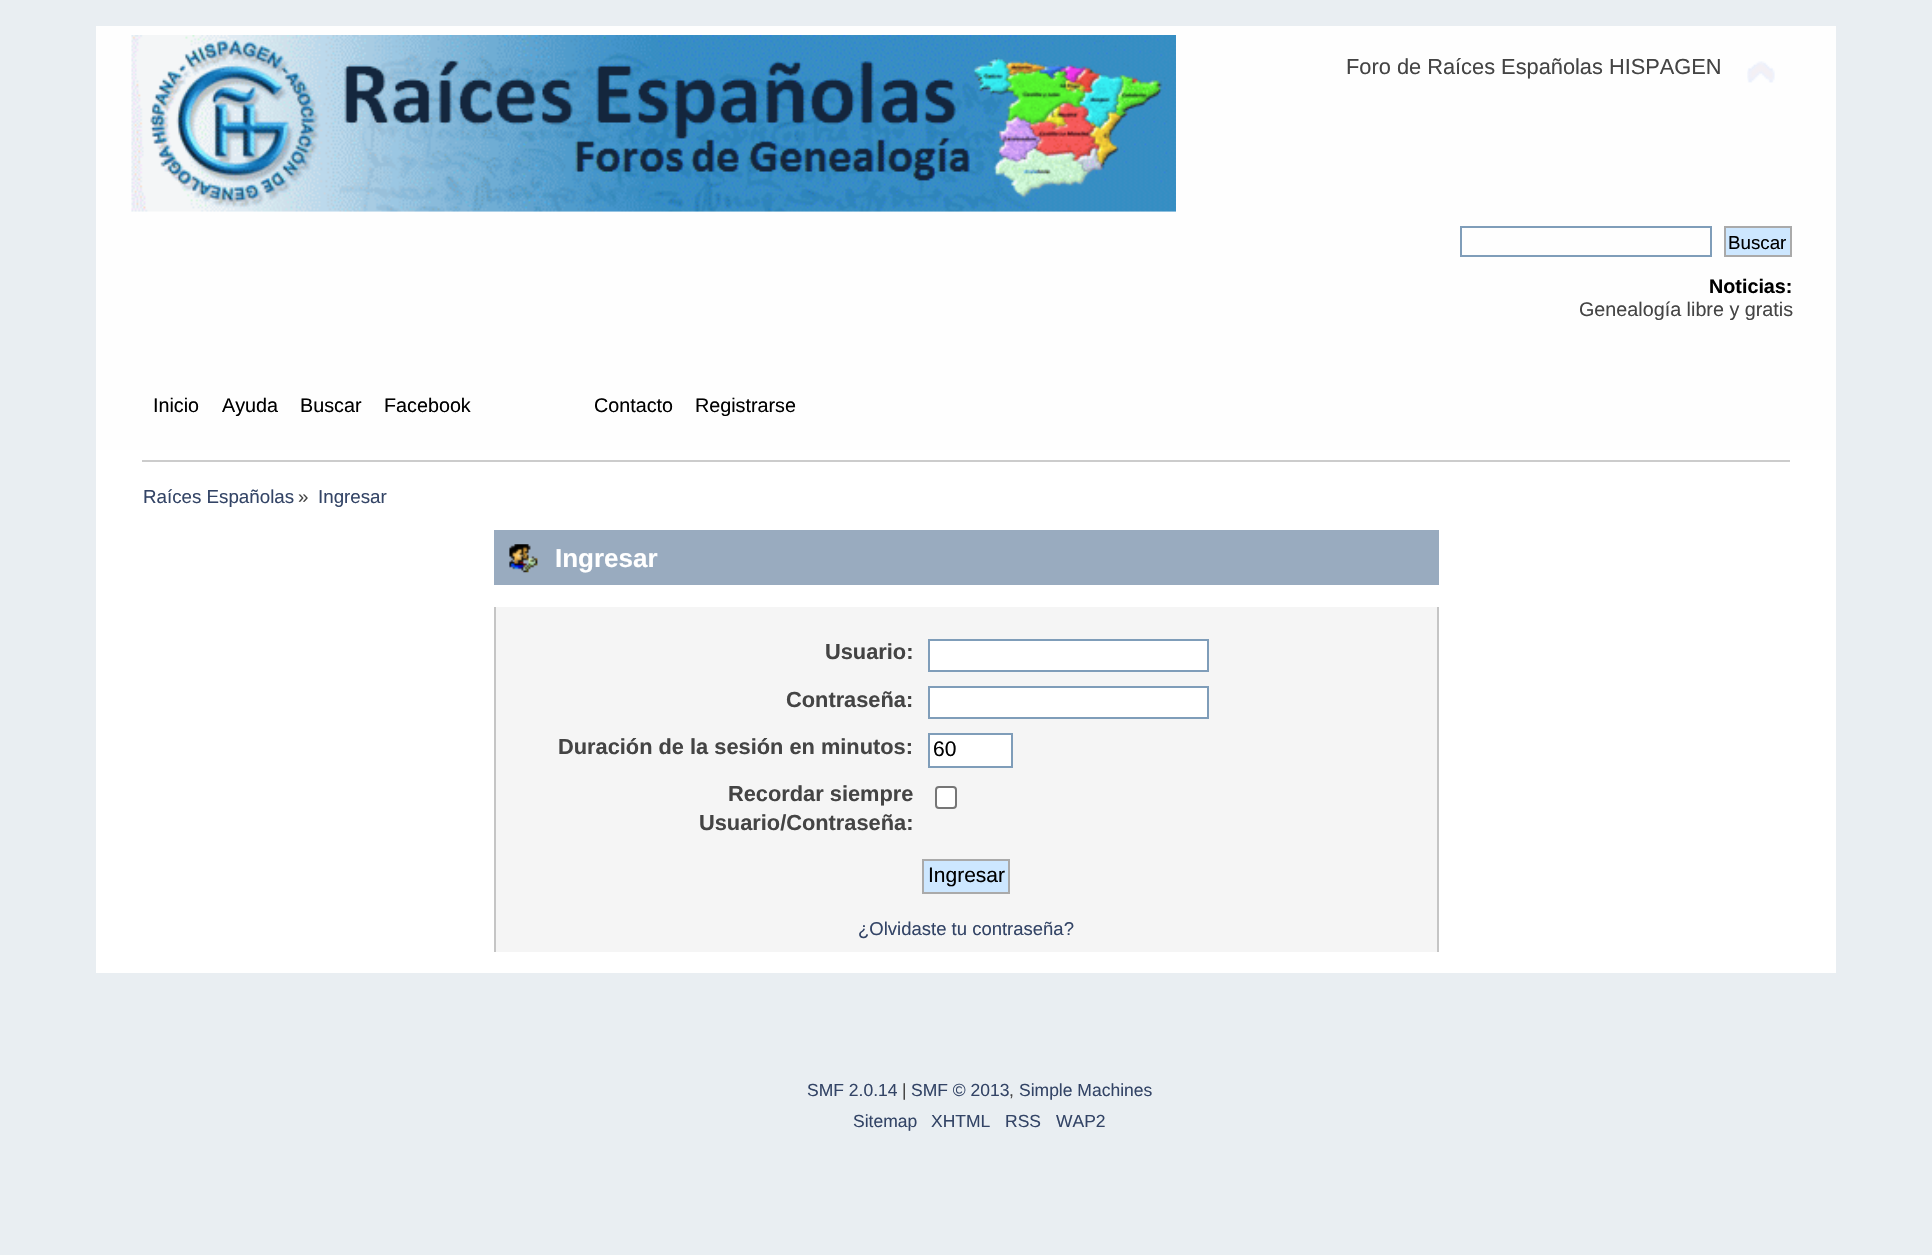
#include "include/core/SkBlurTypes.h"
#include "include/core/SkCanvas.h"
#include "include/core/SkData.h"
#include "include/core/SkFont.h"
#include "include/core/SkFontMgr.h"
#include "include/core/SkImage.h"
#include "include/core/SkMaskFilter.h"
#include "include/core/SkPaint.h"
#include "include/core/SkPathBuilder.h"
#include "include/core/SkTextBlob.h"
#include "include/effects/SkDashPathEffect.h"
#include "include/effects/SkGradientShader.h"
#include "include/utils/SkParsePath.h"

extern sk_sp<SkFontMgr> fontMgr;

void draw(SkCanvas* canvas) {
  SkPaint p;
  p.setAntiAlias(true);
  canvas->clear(SkColorSetRGB(233, 238, 242));
  p.setColor(SkColorSetRGB(254, 254, 254));
  canvas->drawRect(SkRect::MakeLTRB(96, 26, 1836, 450), p);
  canvas->drawImageRect(SkImages::DeferredFromEncodedData(SkData::MakeFromFileName("images/1.png")), SkRect::MakeLTRB(131, 35, 1176, 212), SkSamplingOptions());
  canvas->drawImageRect(SkImages::DeferredFromEncodedData(SkData::MakeFromFileName("images/2.png")), SkRect::MakeLTRB(1747, 61, 1775, 83), SkSamplingOptions());
  p.setStyle(SkPaint::kStroke_Style);
  p.setStrokeWidth(2);
  p.setColor(SkColorSetRGB(127, 157, 185));
  canvas->drawRect(SkRect::MakeLTRB(1461, 227, 1711, 256), p);
  p.setStyle(SkPaint::kFill_Style);
  p.setColor(SkColorSetRGB(205, 231, 255));
  canvas->drawRect(SkRect::MakeLTRB(1725, 227, 1791, 256), p);
  p.setStyle(SkPaint::kStroke_Style);
  p.setColor(SkColorSetRGB(170, 170, 170));
  canvas->drawRect(SkRect::MakeLTRB(1725, 227, 1791, 256), p);
  p.setStyle(SkPaint::kFill_Style);
  p.setColor(SK_ColorWHITE);
  canvas->drawRect(SkRect::MakeLTRB(96, 450, 1836, 973), p);
  p.setColor(SkColorSetRGB(204, 204, 204));
  canvas->drawRect(SkRect::MakeLTRB(142, 460, 1790, 462), p);
  p.setColor(SkColorSetRGB(153, 171, 191));
  canvas->drawRect(SkRect::MakeLTRB(494, 530, 1439, 585), p);
  canvas->drawImageRect(SkImages::DeferredFromEncodedData(SkData::MakeFromFileName("images/3.png")), SkRect::MakeLTRB(509, 544, 538, 573), SkSamplingOptions());
  p.setColor(SkColorSetRGB(245, 245, 245));
  canvas->drawRect(SkRect::MakeLTRB(496, 607, 1437, 952), p);
  p.setColor(SkColorSetRGB(197, 197, 197));
  canvas->drawRect(SkRect::MakeLTRB(1437, 607, 1439, 952), p);
  canvas->drawRect(SkRect::MakeLTRB(494, 607, 496, 952), p);
  p.setColor(SK_ColorWHITE);
  canvas->drawRect(SkRect::MakeLTRB(929, 640, 1208, 671), p);
  p.setStyle(SkPaint::kStroke_Style);
  p.setColor(SkColorSetRGB(127, 157, 185));
  canvas->drawRect(SkRect::MakeLTRB(929, 640, 1208, 671), p);
  p.setStyle(SkPaint::kFill_Style);
  p.setColor(SK_ColorWHITE);
  canvas->drawRect(SkRect::MakeLTRB(929, 687, 1208, 718), p);
  p.setStyle(SkPaint::kStroke_Style);
  p.setColor(SkColorSetRGB(127, 157, 185));
  canvas->drawRect(SkRect::MakeLTRB(929, 687, 1208, 718), p);
  p.setStyle(SkPaint::kFill_Style);
  p.setColor(SK_ColorWHITE);
  canvas->drawRect(SkRect::MakeLTRB(929, 734, 1012, 767), p);
  p.setStyle(SkPaint::kStroke_Style);
  p.setColor(SkColorSetRGB(127, 157, 185));
  canvas->drawRect(SkRect::MakeLTRB(929, 734, 1012, 767), p);
  p.setStyle(SkPaint::kFill_Style);
  p.setColor(SK_ColorWHITE);
  canvas->drawRoundRect(SkRect::MakeLTRB(936, 787, 956, 808), 3, 3, p);
  p.setStyle(SkPaint::kStroke_Style);
  p.setColor(SkColorSetRGB(118, 118, 118));
  canvas->drawRoundRect(SkRect::MakeLTRB(936, 787, 956, 808), 3, 3, p);
  p.setStyle(SkPaint::kFill_Style);
  p.setColor(SkColorSetRGB(205, 231, 255));
  canvas->drawRect(SkRect::MakeLTRB(923, 860, 1009, 893), p);
  p.setStyle(SkPaint::kStroke_Style);
  p.setColor(SkColorSetRGB(170, 170, 170));
  canvas->drawRect(SkRect::MakeLTRB(923, 860, 1009, 893), p);
  SkFont font1(fontMgr->matchFamilyStyle("Liberation Sans", SkFontStyle::Normal()), 21.8f);
  font1.setSubpixel(true);
  p.setStyle(SkPaint::kFill_Style);
  p.setColor(SkColorSetRGB(68, 68, 68));
  canvas->drawString("Foro de Raíces Españolas HISPAGEN", 1346, 74, font1, p);
  SkFont font2(fontMgr->matchFamilyStyle("Liberation Sans", SkFontStyle::Normal()), 18.75f);
  font2.setSubpixel(true);
  p.setColor(SK_ColorBLACK);
  canvas->drawString("Buscar", 1728, 249, font2, p);
  SkFont font3(fontMgr->matchFamilyStyle("Liberation Sans", SkFontStyle::Bold()), 19.75f);
  font3.setSubpixel(true);
  canvas->drawString("Noticias:", 1709, 293, font3, p);
  SkFont font4(fontMgr->matchFamilyStyle("Liberation Sans", SkFontStyle::Normal()), 19.75f);
  font4.setSubpixel(true);
  p.setColor(SkColorSetRGB(68, 68, 68));
  canvas->drawString("Genealogía libre y gratis", 1579, 316, font4, p);
  p.setColor(SK_ColorBLACK);
  canvas->drawString("Inicio", 153, 412, font4, p);
  canvas->drawString("Ayuda", 222, 412, font4, p);
  canvas->drawString("Buscar", 300, 412, font4, p);
  canvas->drawString("Facebook", 384, 412, font4, p);
  canvas->drawString("Contacto", 594, 412, font4, p);
  canvas->drawString("Registrarse", 695, 412, font4, p);
  p.setColor(SkColorSetRGB(51, 68, 102));
  canvas->drawString("Raíces Españolas", 143, 503, font2, p);
  p.setColor(SkColorSetRGB(68, 68, 68));
  canvas->drawString("»", 298, 503, font2, p);
  p.setColor(SkColorSetRGB(51, 68, 102));
  canvas->drawString("Ingresar", 318, 503, font2, p);
  SkFont font5(fontMgr->matchFamilyStyle("Liberation Sans", SkFontStyle::Bold()), 26);
  font5.setSubpixel(true);
  p.setColor(SK_ColorWHITE);
  canvas->drawString("Ingresar", 555, 567, font5, p);
  SkFont font6(fontMgr->matchFamilyStyle("Liberation Sans", SkFontStyle::Bold()), 21.8f);
  font6.setSubpixel(true);
  p.setColor(SkColorSetRGB(68, 68, 68));
  canvas->drawString("Usuario:", 825, 659, font6, p);
  canvas->drawString("Contraseña:", 786, 707, font6, p);
  canvas->drawString("Duración de la sesión en minutos:", 558, 754, font6, p);
  SkFont font7(fontMgr->matchFamilyStyle("Liberation Sans", SkFontStyle::Normal()), 21);
  font7.setSubpixel(true);
  p.setColor(SK_ColorBLACK);
  canvas->drawString("60", 933, 756, font7, p);
  p.setColor(SkColorSetRGB(68, 68, 68));
  canvas->drawString("Recordar siempre", 728, 801, font6, p);
  canvas->drawString("Usuario/Contraseña:", 699, 830, font6, p);
  p.setColor(SK_ColorBLACK);
  canvas->drawString("Ingresar", 928, 882, font7, p);
  SkFont font8(fontMgr->matchFamilyStyle("Liberation Sans", SkFontStyle::Normal()), 18.5f);
  font8.setSubpixel(true);
  p.setColor(SkColorSetRGB(51, 68, 102));
  canvas->drawString("¿Olvidaste tu contraseña?", 858, 935, font8, p);
  SkFont font9(fontMgr->matchFamilyStyle("Liberation Sans", SkFontStyle::Normal()), 17.5f);
  font9.setSubpixel(true);
  canvas->drawString("SMF 2.0.14", 807, 1096, font9, p);
  p.setColor(SkColorSetRGB(68, 68, 68));
  canvas->drawString("|", 902, 1096, font9, p);
  p.setColor(SkColorSetRGB(51, 68, 102));
  canvas->drawString("SMF © 2013", 911, 1096, font9, p);
  p.setColor(SkColorSetRGB(68, 68, 68));
  canvas->drawString(",", 1009, 1096, font9, p);
  p.setColor(SkColorSetRGB(51, 68, 102));
  canvas->drawString("Simple Machines", 1019, 1096, font9, p);
  canvas->drawString("Sitemap", 853, 1127, font9, p);
  canvas->drawString("XHTML", 931, 1127, font9, p);
  canvas->drawString("RSS", 1005, 1127, font9, p);
  canvas->drawString("WAP2", 1056, 1127, font9, p);
}
